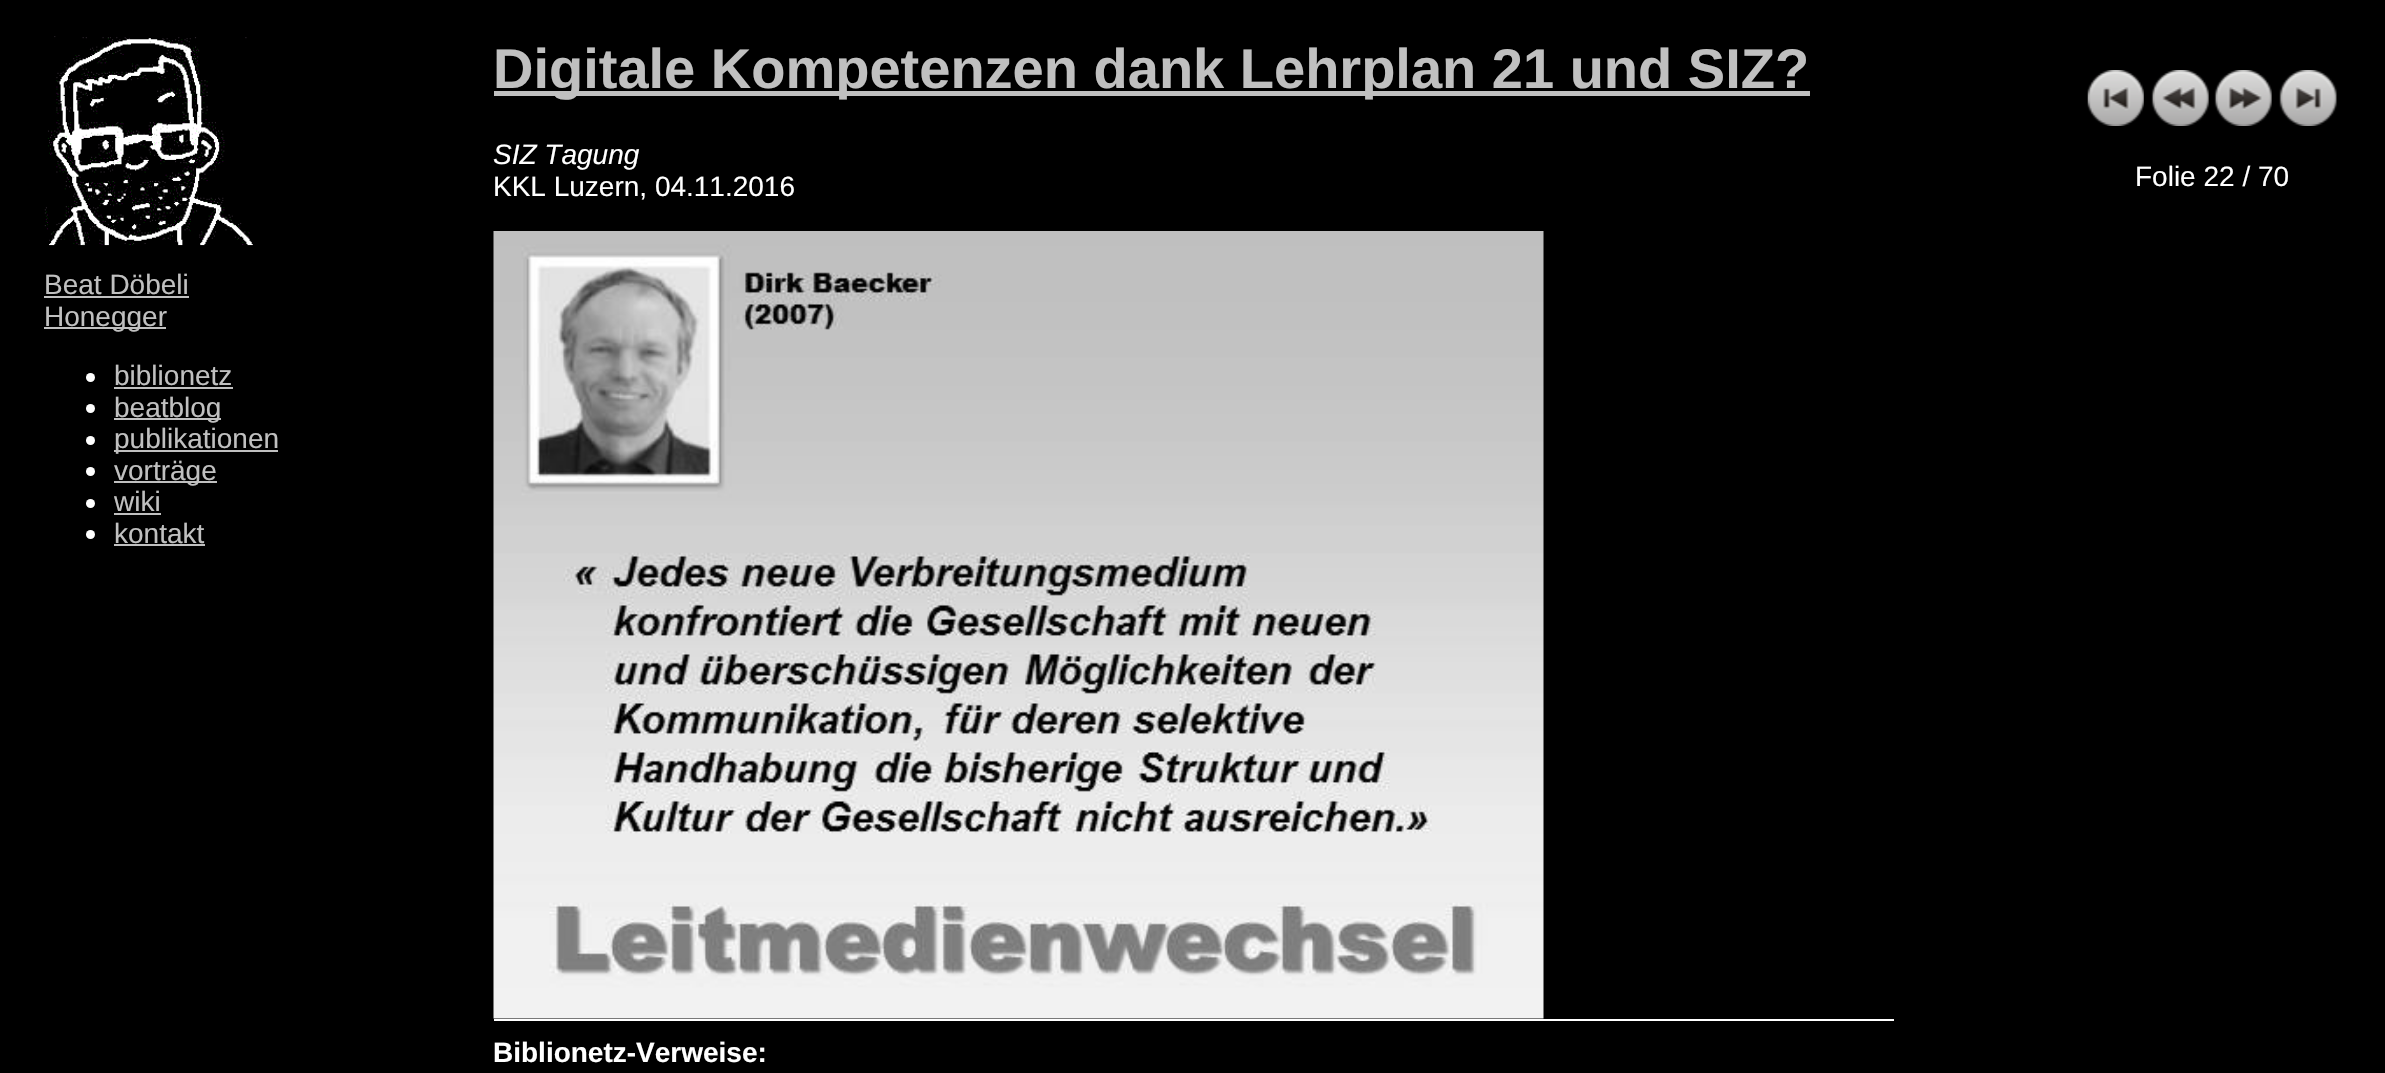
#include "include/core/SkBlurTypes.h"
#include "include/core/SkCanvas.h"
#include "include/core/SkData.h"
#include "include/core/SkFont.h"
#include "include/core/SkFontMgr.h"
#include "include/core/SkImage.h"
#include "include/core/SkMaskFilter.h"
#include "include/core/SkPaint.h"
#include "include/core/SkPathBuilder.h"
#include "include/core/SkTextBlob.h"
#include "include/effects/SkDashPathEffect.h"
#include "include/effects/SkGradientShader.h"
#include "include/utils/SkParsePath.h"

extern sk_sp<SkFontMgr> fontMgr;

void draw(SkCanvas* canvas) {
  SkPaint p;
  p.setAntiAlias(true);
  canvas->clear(SK_ColorBLACK);
  p.setColor(SkColorSetRGB(192, 192, 192));
  canvas->drawRect(SkRect::MakeLTRB(494, 91, 1810, 96), p);
  canvas->drawImageRect(SkImages::DeferredFromEncodedData(SkData::MakeFromFileName("images/1.png")), SkRect::MakeLTRB(2087, 70, 2144, 126), SkSamplingOptions());
  canvas->drawImageRect(SkImages::DeferredFromEncodedData(SkData::MakeFromFileName("images/2.png")), SkRect::MakeLTRB(2151, 70, 2209, 126), SkSamplingOptions());
  canvas->drawImageRect(SkImages::DeferredFromEncodedData(SkData::MakeFromFileName("images/3.png")), SkRect::MakeLTRB(2214, 70, 2272, 126), SkSamplingOptions());
  canvas->drawImageRect(SkImages::DeferredFromEncodedData(SkData::MakeFromFileName("images/4.png")), SkRect::MakeLTRB(2279, 70, 2337, 126), SkSamplingOptions());
  canvas->drawImageRect(SkImages::DeferredFromEncodedData(SkData::MakeFromFileName("images/5.png")), SkRect::MakeLTRB(44, 36, 253, 246), SkSamplingOptions());
  canvas->drawRect(SkRect::MakeLTRB(44, 296, 189, 298), p);
  canvas->drawRect(SkRect::MakeLTRB(44, 327, 166, 329), p);
  p.setColor(SK_ColorWHITE);
  canvas->drawCircle(90.5f, 377.5f, 4.5f, p);
  p.setColor(SkColorSetRGB(192, 192, 192));
  canvas->drawRect(SkRect::MakeLTRB(114, 387, 233, 389), p);
  p.setColor(SK_ColorWHITE);
  canvas->drawCircle(90.5f, 408.5f, 4.5f, p);
  p.setColor(SkColorSetRGB(192, 192, 192));
  canvas->drawRect(SkRect::MakeLTRB(114, 418, 221, 420), p);
  p.setColor(SK_ColorWHITE);
  canvas->drawCircle(90.5f, 440.5f, 4.5f, p);
  p.setColor(SkColorSetRGB(192, 192, 192));
  canvas->drawRect(SkRect::MakeLTRB(114, 450, 278, 452), p);
  p.setColor(SK_ColorWHITE);
  canvas->drawCircle(90.5f, 471.5f, 4.5f, p);
  p.setColor(SkColorSetRGB(192, 192, 192));
  canvas->drawRect(SkRect::MakeLTRB(114, 481, 217, 483), p);
  p.setColor(SK_ColorWHITE);
  canvas->drawCircle(90.5f, 503.5f, 4.5f, p);
  p.setColor(SkColorSetRGB(192, 192, 192));
  canvas->drawRect(SkRect::MakeLTRB(114, 513, 161, 515), p);
  p.setColor(SK_ColorWHITE);
  canvas->drawCircle(90.5f, 534.5f, 4.5f, p);
  p.setColor(SkColorSetRGB(192, 192, 192));
  canvas->drawRect(SkRect::MakeLTRB(114, 544, 205, 546), p);
  canvas->drawImageRect(SkImages::DeferredFromEncodedData(SkData::MakeFromFileName("images/6.png")), SkRect::MakeLTRB(493, 231, 1544, 1019), SkSamplingOptions());
  p.setColor(SK_ColorWHITE);
  canvas->drawRect(SkRect::MakeLTRB(494, 1019, 1894, 1021), p);
  SkFont font1(fontMgr->matchFamilyStyle("Liberation Sans", SkFontStyle::Bold()), 56);
  font1.setSubpixel(true);
  p.setColor(SkColorSetRGB(192, 192, 192));
  canvas->drawString("Digitale Kompetenzen dank Lehrplan 21 und SIZ?", 493, 88, font1, p);
  SkFont font2(fontMgr->matchFamilyStyle("Liberation Sans", SkFontStyle::Italic()), 28);
  font2.setSubpixel(true);
  p.setColor(SK_ColorWHITE);
  canvas->drawString("SIZ Tagung", 493, 164, font2, p);
  SkFont font3(fontMgr->matchFamilyStyle("Liberation Sans", SkFontStyle::Normal()), 28);
  font3.setSubpixel(true);
  canvas->drawString("KKL Luzern, 04.11.2016", 493, 196, font3, p);
  canvas->drawString("Folie 22 / 70", 2135, 186, font3, p);
  p.setColor(SkColorSetRGB(192, 192, 192));
  canvas->drawString("Beat Döbeli", 44, 294, font3, p);
  canvas->drawString("Honegger", 44, 326, font3, p);
  canvas->drawString("biblionetz", 114, 385, font3, p);
  canvas->drawString("beatblog", 114, 417, font3, p);
  canvas->drawString("publikationen", 114, 448, font3, p);
  canvas->drawString("vorträge", 114, 480, font3, p);
  canvas->drawString("wiki", 114, 511, font3, p);
  canvas->drawString("kontakt", 114, 543, font3, p);
  SkFont font4(fontMgr->matchFamilyStyle("Liberation Sans", SkFontStyle::Bold()), 28);
  font4.setSubpixel(true);
  p.setColor(SK_ColorWHITE);
  canvas->drawString("Biblionetz-Verweise:", 493, 1062, font4, p);
}
